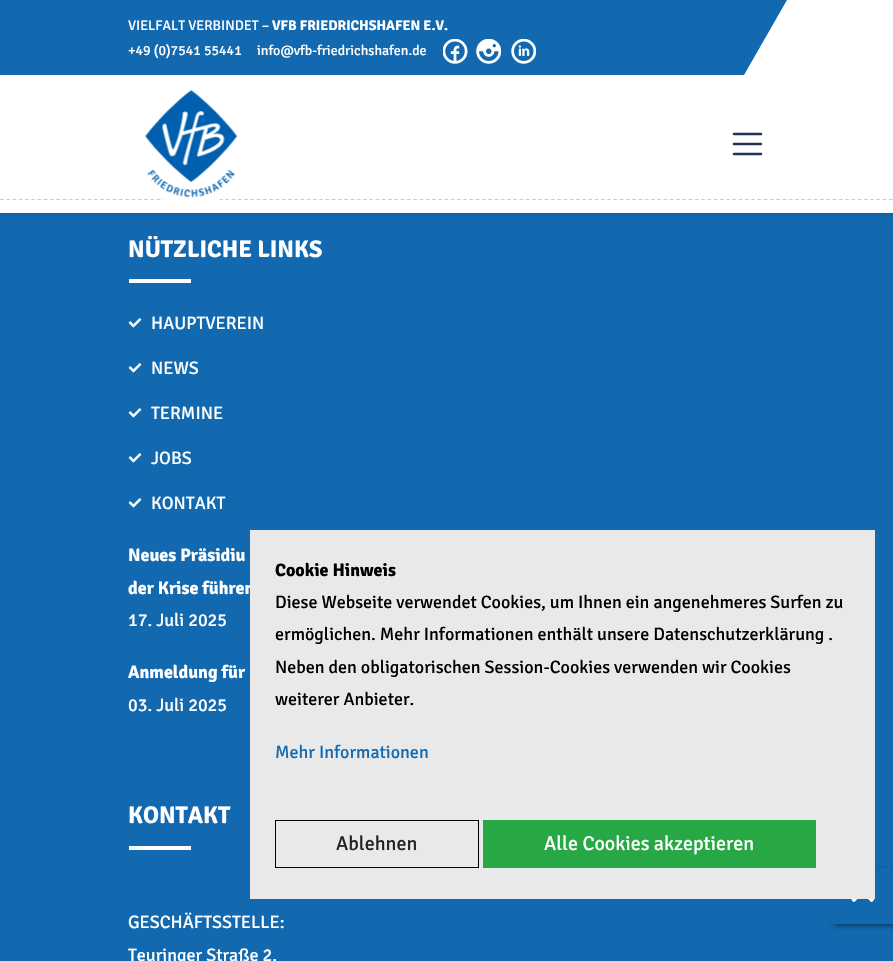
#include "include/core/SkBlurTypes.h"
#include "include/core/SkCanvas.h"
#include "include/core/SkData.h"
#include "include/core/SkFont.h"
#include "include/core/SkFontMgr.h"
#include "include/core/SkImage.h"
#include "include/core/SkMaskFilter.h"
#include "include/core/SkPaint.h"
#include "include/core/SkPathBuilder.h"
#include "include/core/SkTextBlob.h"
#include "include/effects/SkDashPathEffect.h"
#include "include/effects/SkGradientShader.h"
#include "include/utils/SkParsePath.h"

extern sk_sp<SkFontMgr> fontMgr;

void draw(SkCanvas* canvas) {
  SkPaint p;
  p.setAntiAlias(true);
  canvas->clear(SkColorSetRGB(18, 105, 176));
  p.setColor(SkColorSetARGB(18, 0, 0, 0));
  p.setMaskFilter(SkMaskFilter::MakeBlur(kNormal_SkBlurStyle, 2.5f));
  canvas->drawRect(SkRect::MakeLTRB(0, 3, 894, 215), p);
  p.setMaskFilter(nullptr);
  p.setColor(SK_ColorWHITE);
  canvas->drawRect(SkRect::MakeLTRB(0, 0, 893, 213), p);
  p.setColor(SkColorSetRGB(18, 105, 176));
  canvas->drawPath(SkPathBuilder().moveTo(-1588, 0).lineTo(787, 0).lineTo(744, 75).lineTo(-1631, 75).close().detach(), p);
  canvas->drawImageRect(SkImages::DeferredFromEncodedData(SkData::MakeFromFileName("images/1.png")), SkRect::MakeLTRB(443, 39, 468, 64), SkSamplingOptions());
  canvas->drawImageRect(SkImages::DeferredFromEncodedData(SkData::MakeFromFileName("images/2.png")), SkRect::MakeLTRB(476, 39, 501, 64), SkSamplingOptions());
  canvas->drawImageRect(SkImages::DeferredFromEncodedData(SkData::MakeFromFileName("images/3.png")), SkRect::MakeLTRB(511, 39, 536, 64), SkSamplingOptions());
  p.setStyle(SkPaint::kStroke_Style);
  p.setStrokeWidth(1.2f);
  p.setColor(SkColorSetRGB(204, 204, 204));
  p.setPathEffect(SkDashPathEffect::Make({{3.75f, 2.51f}}, 0));
  canvas->drawPath(SkPathBuilder().moveTo(0, 199.5f).lineTo(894, 199.5f).detach(), p);
  p.setPathEffect(nullptr);
  canvas->drawImageRect(SkImages::DeferredFromEncodedData(SkData::MakeFromFileName("images/4.png")), SkRect::MakeLTRB(145, 90, 238, 201), SkSamplingOptions());
  p.setStrokeWidth(2.5f);
  p.setStrokeCap(SkPaint::kRound_Cap);
  p.setColor(SkColorSetRGB(33, 50, 86));
  canvas->drawPath(SkPathBuilder().moveTo(734, 134).lineTo(761, 134).moveTo(734, 144).lineTo(761, 144).moveTo(734, 154).lineTo(761, 154).detach(), p);
  p.setStyle(SkPaint::kFill_Style);
  p.setColor(SK_ColorWHITE);
  canvas->drawRect(SkRect::MakeLTRB(129, 279, 191, 283), p);
  canvas->drawImageRect(SkImages::DeferredFromEncodedData(SkData::MakeFromFileName("images/5.png")), SkRect::MakeLTRB(128, 318, 142, 328), SkSamplingOptions());
  canvas->drawImageRect(SkImages::DeferredFromEncodedData(SkData::MakeFromFileName("images/5.png")), SkRect::MakeLTRB(128, 363, 142, 373), SkSamplingOptions());
  canvas->drawImageRect(SkImages::DeferredFromEncodedData(SkData::MakeFromFileName("images/5.png")), SkRect::MakeLTRB(128, 408, 142, 418), SkSamplingOptions());
  canvas->drawImageRect(SkImages::DeferredFromEncodedData(SkData::MakeFromFileName("images/5.png")), SkRect::MakeLTRB(128, 453, 142, 463), SkSamplingOptions());
  canvas->drawImageRect(SkImages::DeferredFromEncodedData(SkData::MakeFromFileName("images/5.png")), SkRect::MakeLTRB(128, 498, 142, 508), SkSamplingOptions());
  canvas->drawRect(SkRect::MakeLTRB(129, 846, 191, 850), p);
  p.setColor(SkColorSetARGB(105, 0, 0, 0));
  p.setMaskFilter(SkMaskFilter::MakeBlur(kNormal_SkBlurStyle, 2.5f));
  canvas->drawRect(SkRect::MakeLTRB(834, 870, 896, 926), p);
  p.setMaskFilter(nullptr);
  p.setColor(SkColorSetRGB(18, 105, 176));
  canvas->drawRect(SkRect::MakeLTRB(831, 868, 893, 924), p);
  canvas->drawImageRect(SkImages::DeferredFromEncodedData(SkData::MakeFromFileName("images/6.png")), SkRect::MakeLTRB(851, 899, 874, 902), SkSamplingOptions());
  SkFont font1(fontMgr->matchFamilyStyle("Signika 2", SkFontStyle(300, SkFontStyle::kNormal_Width, SkFontStyle::kUpright_Slant)), 14);
  font1.setSubpixel(true);
  p.setColor(SK_ColorWHITE);
  canvas->drawString("VIELFALT VERBINDET –", 128, 30, font1, p);
  SkFont font2(fontMgr->matchFamilyStyle("Signika", SkFontStyle(300, SkFontStyle::kNormal_Width, SkFontStyle::kUpright_Slant)), 14);
  font2.setSubpixel(true);
  canvas->drawString("VFB FRIEDRICHSHAFEN E.V.", 272, 30, font2, p);
  canvas->drawString("+49 (0)7541 55441", 128, 55, font1, p);
  canvas->drawString("info@vfb-friedrichshafen.de", 257, 55, font1, p);
  SkFont font3(fontMgr->matchFamilyStyle("Signika", SkFontStyle(300, SkFontStyle::kNormal_Width, SkFontStyle::kUpright_Slant)), 24);
  font3.setSubpixel(true);
  canvas->drawString("NÜTZLICHE LINKS", 128, 257, font3, p);
  SkFont font4(fontMgr->matchFamilyStyle("Signika 2", SkFontStyle(300, SkFontStyle::kNormal_Width, SkFontStyle::kUpright_Slant)), 18);
  font4.setSubpixel(true);
  canvas->drawString("HAUPTVEREIN", 151, 329, font4, p);
  canvas->drawString("NEWS", 151, 374, font4, p);
  canvas->drawString("TERMINE", 151, 419, font4, p);
  canvas->drawString("JOBS", 151, 464, font4, p);
  canvas->drawString("KONTAKT", 151, 509, font4, p);
  SkFont font5(fontMgr->matchFamilyStyle("Signika", SkFontStyle(300, SkFontStyle::kNormal_Width, SkFontStyle::kUpright_Slant)), 18);
  font5.setSubpixel(true);
  canvas->drawString("Neues Präsidiu", 128, 561, font5, p);
  canvas->drawString("der Krise führen", 128, 594, font5, p);
  canvas->drawString("17. Juli 2025", 128, 626, font4, p);
  canvas->drawString("Anmeldung für", 128, 678, font5, p);
  canvas->drawString("03. Juli 2025", 128, 711, font4, p);
  canvas->drawString("KONTAKT", 128, 823, font3, p);
  canvas->drawString("GESCHÄFTSSTELLE:", 128, 928, font4, p);
  canvas->drawString("Teuringer Straße 2,", 128, 961, font4, p);
  p.setColor(SkColorSetRGB(233, 233, 233));
  canvas->drawRect(SkRect::MakeLTRB(250, 530, 875, 899), p);
  p.setColor(SK_ColorBLACK);
  canvas->drawString("Cookie Hinweis", 275, 576, font5, p);
  canvas->drawString("Diese Webseite verwendet Cookies, um Ihnen ein angenehmeres Surfen zu", 275, 608, font4, p);
  canvas->drawString("ermöglichen. Mehr Informationen enthält unsere Datenschutzerklärung .", 275, 640, font4, p);
  canvas->drawString("Neben den obligatorischen Session-Cookies verwenden wir Cookies", 275, 673, font4, p);
  canvas->drawString("weiterer Anbieter.", 275, 705, font4, p);
  p.setColor(SkColorSetRGB(18, 105, 176));
  canvas->drawString("Mehr Informationen", 275, 758, font4, p);
  p.setStyle(SkPaint::kStroke_Style);
  p.setStrokeWidth(1);
  p.setStrokeCap(SkPaint::kButt_Cap);
  p.setColor(SK_ColorBLACK);
  canvas->drawRect(SkRect::MakeLTRB(275.5f, 820.5f, 478.5f, 867.5f), p);
  SkFont font6(fontMgr->matchFamilyStyle("Signika 2", SkFontStyle(300, SkFontStyle::kNormal_Width, SkFontStyle::kUpright_Slant)), 20);
  font6.setSubpixel(true);
  p.setStyle(SkPaint::kFill_Style);
  p.setColor(SkColorSetRGB(33, 37, 41));
  canvas->drawString("Ablehnen", 336, 850, font6, p);
  p.setColor(SkColorSetRGB(40, 167, 69));
  canvas->drawRect(SkRect::MakeLTRB(483, 820, 816, 868), p);
  p.setColor(SK_ColorWHITE);
  canvas->drawString("Alle Cookies akzeptieren", 544, 850, font6, p);
}
